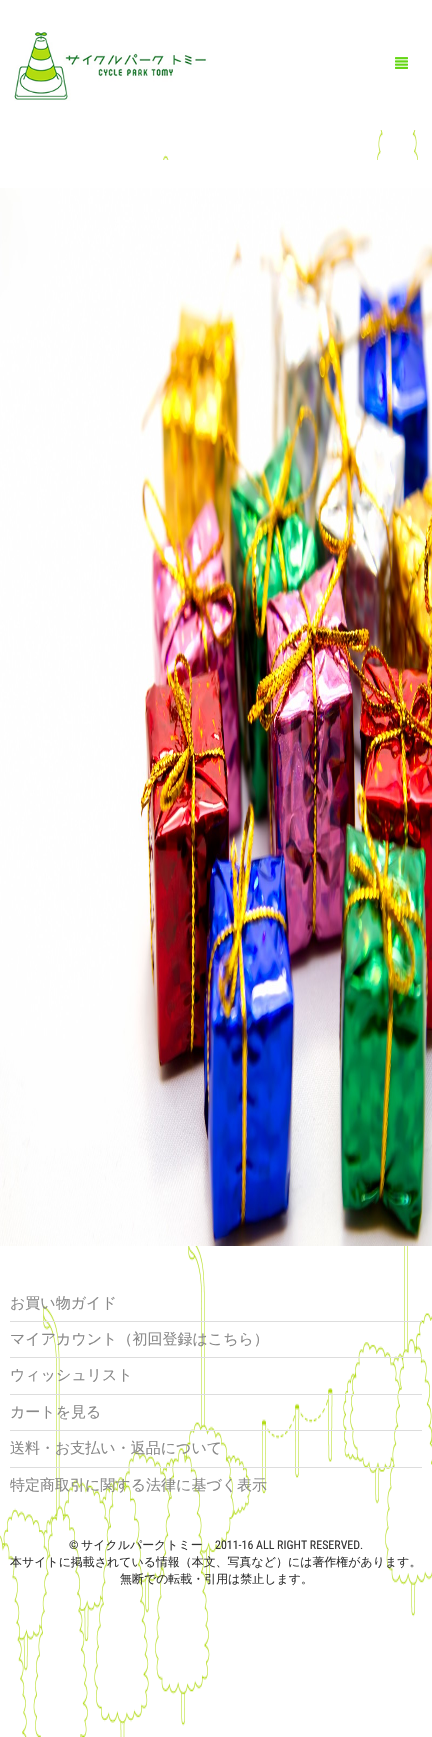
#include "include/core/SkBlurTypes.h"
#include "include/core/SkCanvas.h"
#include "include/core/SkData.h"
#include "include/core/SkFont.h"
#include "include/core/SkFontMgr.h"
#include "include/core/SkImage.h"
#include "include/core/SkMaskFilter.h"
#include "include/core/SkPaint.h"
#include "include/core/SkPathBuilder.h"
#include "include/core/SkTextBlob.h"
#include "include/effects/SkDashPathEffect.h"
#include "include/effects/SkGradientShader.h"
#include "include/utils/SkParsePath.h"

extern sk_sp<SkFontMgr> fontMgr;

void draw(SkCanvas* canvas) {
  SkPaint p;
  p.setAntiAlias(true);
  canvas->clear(SK_ColorWHITE);
  canvas->drawImageRect(SkImages::DeferredFromEncodedData(SkData::MakeFromFileName("images/1.png")), SkRect::MakeLTRB(0, 130, 432, 1737), SkSamplingOptions());
  canvas->drawImageRect(SkImages::DeferredFromEncodedData(SkData::MakeFromFileName("images/2.png")), SkRect::MakeLTRB(14, 32, 208, 101), SkSamplingOptions());
  canvas->drawImageRect(SkImages::DeferredFromEncodedData(SkData::MakeFromFileName("images/3.png")), SkRect::MakeLTRB(395, 57, 408, 69), SkSamplingOptions());
  p.setColor(SK_ColorWHITE);
  canvas->drawRect(SkRect::MakeLTRB(102, 160, 420, 188), p);
  canvas->drawImageRect(SkImages::DeferredFromEncodedData(SkData::MakeFromFileName("images/4.png")), SkRect::MakeLTRB(0, 188, 432, 1246), SkSamplingOptions());
  p.setColor(SkColorSetRGB(221, 221, 221));
  canvas->drawRect(SkRect::MakeLTRB(10, 1321, 422, 1322), p);
  canvas->drawRect(SkRect::MakeLTRB(10, 1357, 422, 1358), p);
  canvas->drawRect(SkRect::MakeLTRB(10, 1394, 422, 1395), p);
  canvas->drawRect(SkRect::MakeLTRB(10, 1430, 422, 1431), p);
  canvas->drawRect(SkRect::MakeLTRB(10, 1467, 422, 1468), p);
  SkFont font1(fontMgr->matchFamilyStyle("WenQuanYi Zen Hei", SkFontStyle(500, SkFontStyle::kNormal_Width, SkFontStyle::kUpright_Slant)), 15);
  font1.setSubpixel(true);
  p.setColor(SkColorSetRGB(136, 136, 136));
  canvas->drawString("お買い物ガイド", 10, 1308, font1, p);
  canvas->drawString("マイアカウント（初回登録はこちら）", 10, 1344, font1, p);
  canvas->drawString("ウィッシュリスト", 10, 1380, font1, p);
  canvas->drawString("カートを見る", 10, 1417, font1, p);
  canvas->drawString("送料・お支払い・返品について", 10, 1453, font1, p);
  canvas->drawString("特定商取引に関する法律に基づく表示", 10, 1490, font1, p);
  SkFont font2(fontMgr->matchFamilyStyle("Roboto Condensed", SkFontStyle::Normal()), 11.95f);
  font2.setSubpixel(true);
  p.setColor(SkColorSetRGB(51, 51, 51));
  canvas->drawString("©", 69, 1549, font2, p);
  SkFont font3(fontMgr->matchFamilyStyle("WenQuanYi Zen Hei", SkFontStyle(500, SkFontStyle::kNormal_Width, SkFontStyle::kUpright_Slant)), 11.95f);
  font3.setSubpixel(true);
  canvas->drawString("サイクルパークトミー", 81, 1549, font3, p);
  canvas->drawString("2011-16 ALL RIGHT RESERVED.", 215, 1549, font2, p);
  canvas->drawString("本サイトに掲載されている情報（本文、写真など）には著作権があります。", 10, 1566, font3, p);
  canvas->drawString("無断での転載・引用は禁止します。", 120, 1583, font3, p);
}
